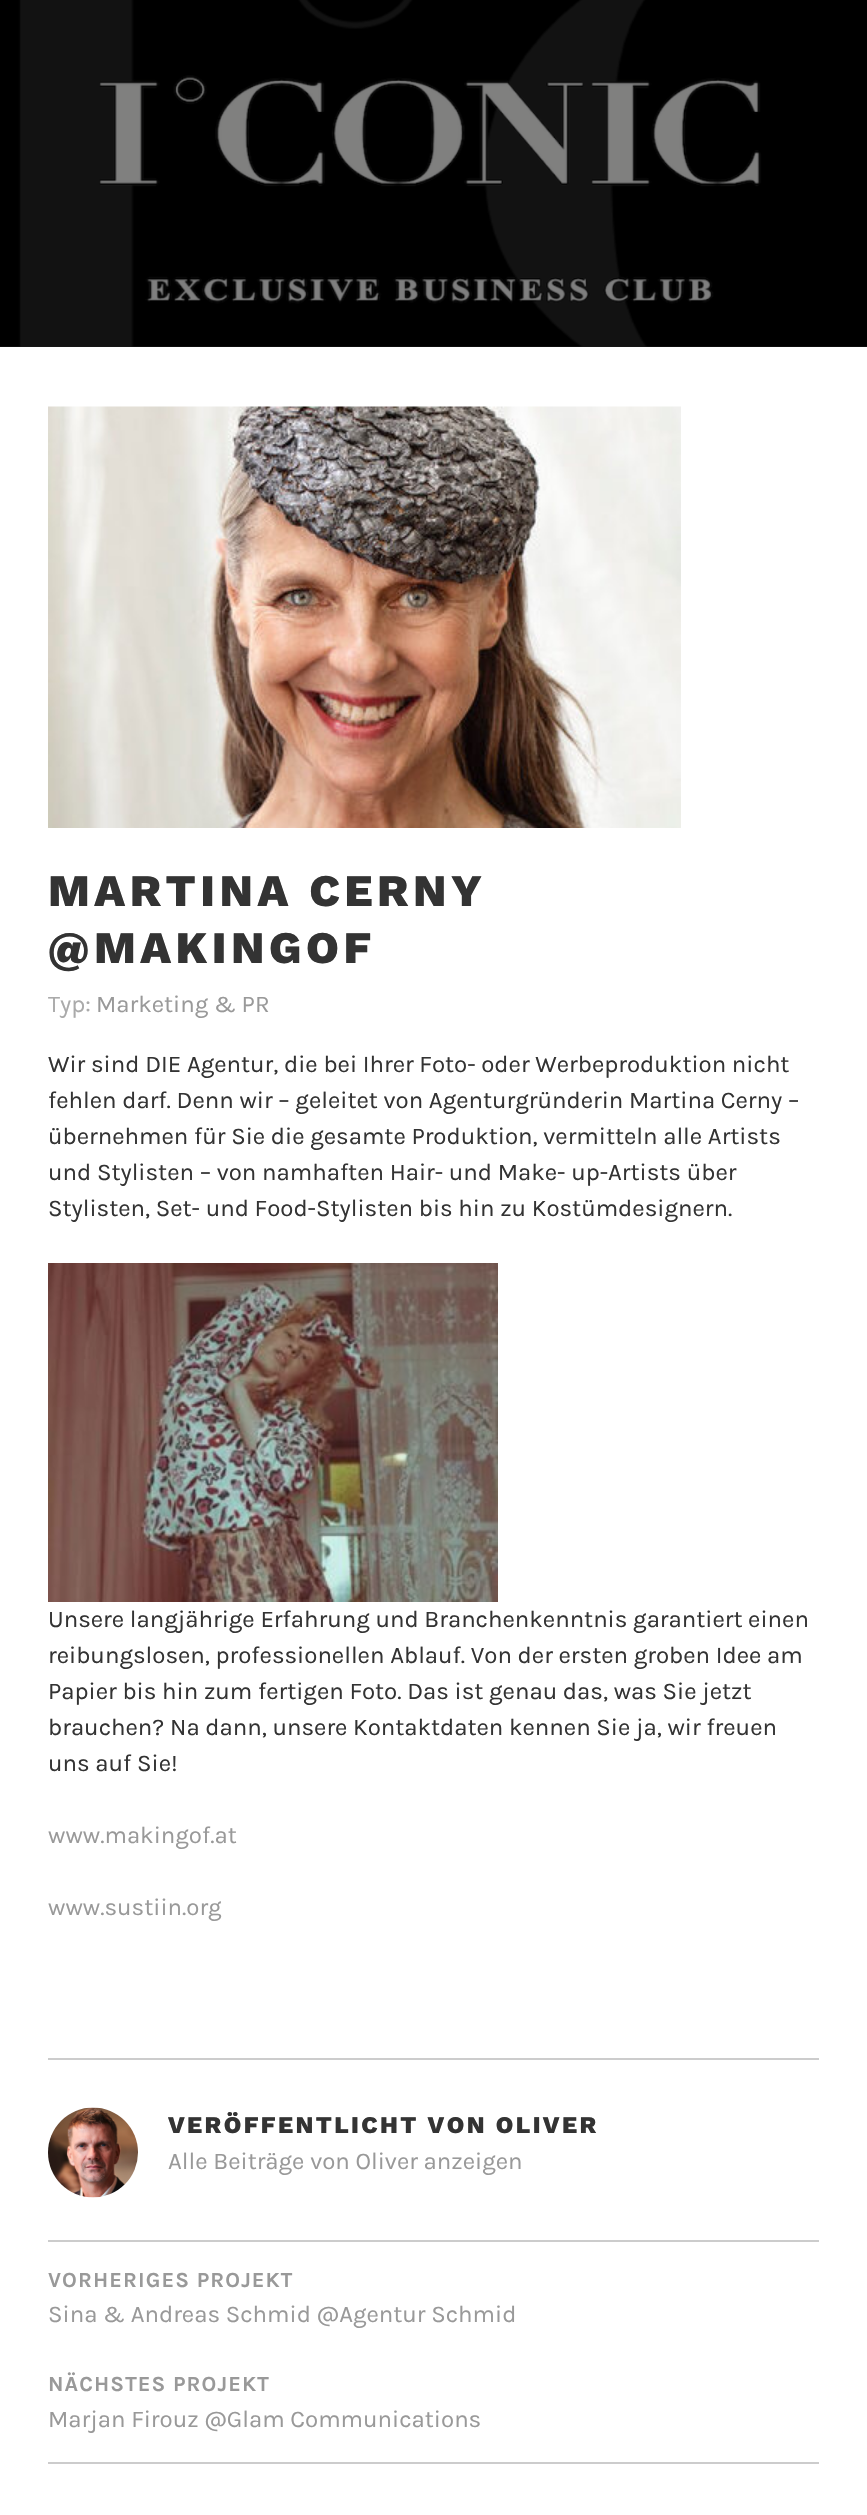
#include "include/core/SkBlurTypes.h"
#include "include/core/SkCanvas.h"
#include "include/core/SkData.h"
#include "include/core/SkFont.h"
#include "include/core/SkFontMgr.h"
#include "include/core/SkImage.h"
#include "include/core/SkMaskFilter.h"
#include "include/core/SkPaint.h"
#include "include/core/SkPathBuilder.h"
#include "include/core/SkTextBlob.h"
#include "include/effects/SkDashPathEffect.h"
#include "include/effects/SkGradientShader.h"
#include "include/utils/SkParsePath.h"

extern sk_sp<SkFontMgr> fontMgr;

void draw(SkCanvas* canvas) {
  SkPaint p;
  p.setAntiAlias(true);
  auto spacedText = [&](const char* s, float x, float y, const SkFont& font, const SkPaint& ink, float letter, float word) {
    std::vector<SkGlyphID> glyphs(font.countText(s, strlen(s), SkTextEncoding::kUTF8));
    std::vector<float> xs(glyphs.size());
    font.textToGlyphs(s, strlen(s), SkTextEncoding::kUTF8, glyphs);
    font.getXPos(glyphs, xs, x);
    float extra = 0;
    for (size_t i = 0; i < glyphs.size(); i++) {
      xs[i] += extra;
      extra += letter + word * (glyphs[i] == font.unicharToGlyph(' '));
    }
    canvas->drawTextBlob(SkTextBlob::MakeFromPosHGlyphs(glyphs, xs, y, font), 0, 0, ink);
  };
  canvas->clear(SK_ColorWHITE);
  p.setColor(SkColorSetRGB(26, 26, 26));
  canvas->drawRect(SkRect::MakeLTRB(0, 346, 867, 347), p);
  canvas->drawImageRect(SkImages::DeferredFromEncodedData(SkData::MakeFromFileName("images/1.png")), SkRect::MakeLTRB(0, 0, 867, 347), SkSamplingOptions());
  canvas->drawImageRect(SkImages::DeferredFromEncodedData(SkData::MakeFromFileName("images/2.png")), SkRect::MakeLTRB(48, 406, 681, 828), SkSamplingOptions());
  canvas->drawImageRect(SkImages::DeferredFromEncodedData(SkData::MakeFromFileName("images/3.png")), SkRect::MakeLTRB(48, 1263, 498, 1602), SkSamplingOptions());
  p.setColor(SkColorSetRGB(204, 204, 204));
  canvas->drawRect(SkRect::MakeLTRB(48, 2058, 819, 2060), p);
  canvas->drawImageRect(SkImages::DeferredFromEncodedData(SkData::MakeFromFileName("images/4.png")), SkRect::MakeLTRB(48, 2107, 138, 2198), SkSamplingOptions());
  canvas->drawRect(SkRect::MakeLTRB(48, 2240, 819, 2242), p);
  canvas->drawRect(SkRect::MakeLTRB(48, 2462, 819, 2464), p);
  SkFont font1(fontMgr->matchFamilyStyle("Work Sans", SkFontStyle(800, SkFontStyle::kNormal_Width, SkFontStyle::kUpright_Slant)), 45);
  font1.setSubpixel(true);
  p.setColor(SkColorSetRGB(51, 51, 51));
  spacedText("MARTINA CERNY", 48, 906, font1, p, 4.5f, 0);
  spacedText("@MAKINGOF", 48, 963, font1, p, 4.5f, 0);
  SkFont font2(fontMgr->matchFamilyStyle("Karla", SkFontStyle::Normal()), 24);
  font2.setSubpixel(true);
  p.setColor(SkColorSetRGB(170, 170, 170));
  canvas->drawString("Typ:", 48, 1012, font2, p);
  p.setColor(SkColorSetRGB(153, 153, 153));
  canvas->drawString("Marketing & PR", 96, 1012, font2, p);
  p.setColor(SkColorSetRGB(51, 51, 51));
  canvas->drawString("Wir sind DIE Agentur, die bei Ihrer Foto- oder Werbeproduktion nicht", 48, 1072, font2, p);
  canvas->drawString("fehlen darf. Denn wir – geleitet von Agenturgründerin Martina Cerny –", 48, 1108, font2, p);
  canvas->drawString("übernehmen für Sie die gesamte Produktion, vermitteln alle Artists", 48, 1144, font2, p);
  canvas->drawString("und Stylisten – von namhaften Hair- und Make- up-Artists über", 48, 1180, font2, p);
  canvas->drawString("Stylisten, Set- und Food-Stylisten bis hin zu Kostümdesignern.", 48, 1216, font2, p);
  canvas->drawString("Unsere langjährige Erfahrung und Branchenkenntnis garantiert einen", 48, 1627, font2, p);
  canvas->drawString("reibungslosen, professionellen Ablauf. Von der ersten groben Idee am", 48, 1663, font2, p);
  canvas->drawString("Papier bis hin zum fertigen Foto. Das ist genau das, was Sie jetzt", 48, 1699, font2, p);
  canvas->drawString("brauchen? Na dann, unsere Kontaktdaten kennen Sie ja, wir freuen", 48, 1735, font2, p);
  canvas->drawString("uns auf Sie!", 48, 1771, font2, p);
  p.setColor(SkColorSetRGB(153, 153, 153));
  canvas->drawString("www.makingof.at", 48, 1843, font2, p);
  canvas->drawString("www.sustiin.org", 48, 1915, font2, p);
  SkFont font3(fontMgr->matchFamilyStyle("Work Sans", SkFontStyle(800, SkFontStyle::kNormal_Width, SkFontStyle::kUpright_Slant)), 24);
  font3.setSubpixel(true);
  p.setColor(SkColorSetRGB(51, 51, 51));
  spacedText("VERÖFFENTLICHT VON OLIVER", 168, 2133, font3, p, 2.4f, 0);
  p.setColor(SkColorSetRGB(153, 153, 153));
  canvas->drawString("Alle Beiträge von Oliver anzeigen", 168, 2169, font2, p);
  SkFont font4(fontMgr->matchFamilyStyle("Karla", SkFontStyle::Bold()), 21.6f);
  font4.setSubpixel(true);
  spacedText("VORHERIGES PROJEKT", 48, 2287, font4, p, 1.1f, 0);
  canvas->drawString("Sina & Andreas Schmid @Agentur Schmid", 48, 2322, font2, p);
  spacedText("NÄCHSTES PROJEKT", 48, 2391, font4, p, 1.1f, 0);
  canvas->drawString("Marjan Firouz @Glam Communications", 48, 2427, font2, p);
}
